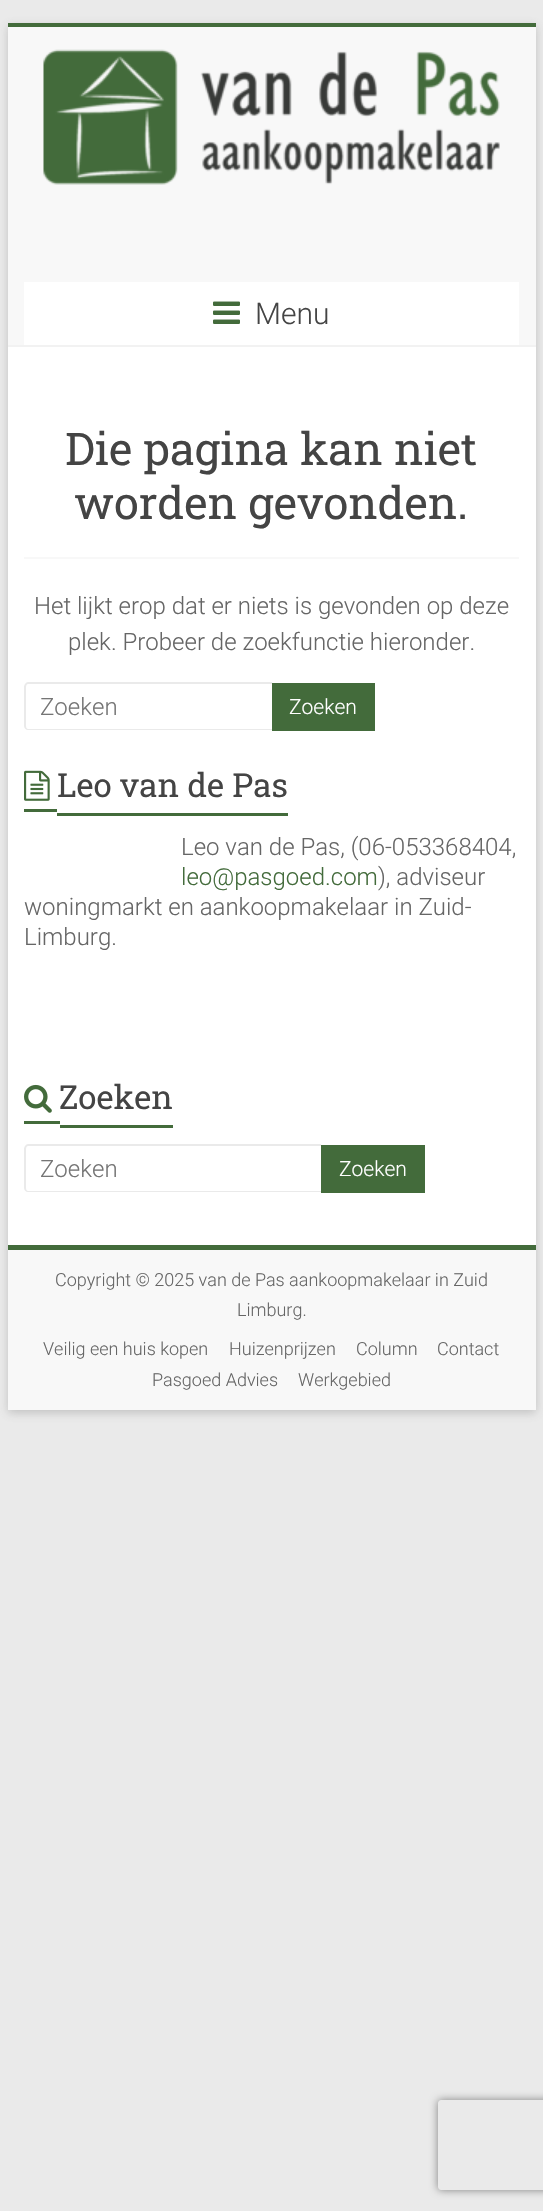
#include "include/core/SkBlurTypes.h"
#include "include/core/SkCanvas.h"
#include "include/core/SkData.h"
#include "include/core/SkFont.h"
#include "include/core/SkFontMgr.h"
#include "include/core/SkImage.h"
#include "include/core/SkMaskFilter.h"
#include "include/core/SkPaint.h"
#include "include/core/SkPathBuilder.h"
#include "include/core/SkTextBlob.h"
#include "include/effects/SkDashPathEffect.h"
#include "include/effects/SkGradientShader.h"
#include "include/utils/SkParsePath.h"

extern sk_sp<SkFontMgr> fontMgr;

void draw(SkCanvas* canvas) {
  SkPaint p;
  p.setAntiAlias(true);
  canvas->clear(SkColorSetRGB(234, 234, 234));
  p.setColor(SkColorSetARGB(77, 100, 100, 100));
  p.setMaskFilter(SkMaskFilter::MakeBlur(kNormal_SkBlurStyle, 4.5f));
  canvas->drawRect(SkRect::MakeLTRB(8, 26, 536, 1413), p);
  p.setMaskFilter(nullptr);
  p.setColor(SK_ColorWHITE);
  canvas->drawRect(SkRect::MakeLTRB(8, 347, 536, 1245), p);
  p.setColor(SkColorSetRGB(67, 107, 59));
  canvas->drawRect(SkRect::MakeLTRB(8, 23, 536, 27), p);
  p.setColor(SkColorSetRGB(248, 248, 248));
  canvas->drawRect(SkRect::MakeLTRB(8, 27, 536, 345), p);
  p.setColor(SkColorSetRGB(242, 242, 242));
  canvas->drawRect(SkRect::MakeLTRB(8, 345, 536, 347), p);
  canvas->drawImageRect(SkImages::DeferredFromEncodedData(SkData::MakeFromFileName("images/1.png")), SkRect::MakeLTRB(43, 49, 500, 185), SkSamplingOptions());
  p.setColor(SK_ColorWHITE);
  canvas->drawRect(SkRect::MakeLTRB(24, 282, 519, 345), p);
  canvas->drawImageRect(SkImages::DeferredFromEncodedData(SkData::MakeFromFileName("images/2.png")), SkRect::MakeLTRB(213, 301, 240, 324), SkSamplingOptions());
  p.setColor(SkColorSetRGB(248, 248, 248));
  canvas->drawRect(SkRect::MakeLTRB(24, 557, 519, 559), p);
  p.setColor(SkColorSetRGB(234, 234, 234));
  canvas->drawPath(SkPathBuilder(SkPathFillType::kEvenOdd).moveTo(28, 682).lineTo(272, 682).lineTo(272, 730).lineTo(28, 730).cubicTo(26, 730, 24, 728, 24, 726).lineTo(24, 687).cubicTo(24, 685, 26, 682, 28, 682).close().moveTo(28, 684).lineTo(272, 684).lineTo(272, 729).lineTo(28, 729).cubicTo(27, 729, 26, 728, 26, 726).lineTo(26, 687).cubicTo(26, 685, 27, 684, 28, 684).close().detach(), p);
  p.setColor(SkColorSetRGB(67, 107, 59));
  canvas->drawRect(SkRect::MakeLTRB(272, 683, 375, 731), p);
  canvas->drawImageRect(SkImages::DeferredFromEncodedData(SkData::MakeFromFileName("images/3.png")), SkRect::MakeLTRB(24, 770, 50, 801), SkSamplingOptions());
  canvas->drawRect(SkRect::MakeLTRB(24, 809, 57, 812), p);
  canvas->drawRect(SkRect::MakeLTRB(57, 813, 288, 816), p);
  canvas->drawImageRect(SkImages::DeferredFromEncodedData(SkData::MakeFromFileName("images/4.png")), SkRect::MakeLTRB(24, 1084, 52, 1113), SkSamplingOptions());
  canvas->drawRect(SkRect::MakeLTRB(24, 1121, 60, 1124), p);
  canvas->drawRect(SkRect::MakeLTRB(60, 1125, 173, 1128), p);
  p.setColor(SkColorSetRGB(234, 234, 234));
  canvas->drawPath(SkPathBuilder(SkPathFillType::kEvenOdd).moveTo(28, 1144).lineTo(321, 1144).lineTo(321, 1192).lineTo(28, 1192).cubicTo(26, 1192, 24, 1190, 24, 1188).lineTo(24, 1149).cubicTo(24, 1147, 26, 1144, 28, 1144).close().moveTo(28, 1146).lineTo(321, 1146).lineTo(321, 1191).lineTo(28, 1191).cubicTo(27, 1191, 26, 1190, 26, 1188).lineTo(26, 1149).cubicTo(26, 1147, 27, 1146, 28, 1146).close().detach(), p);
  p.setColor(SkColorSetRGB(67, 107, 59));
  canvas->drawRect(SkRect::MakeLTRB(321, 1145, 425, 1193), p);
  p.setColor(SkColorSetRGB(248, 248, 248));
  canvas->drawRect(SkRect::MakeLTRB(8, 1250, 536, 1410), p);
  p.setColor(SkColorSetRGB(67, 107, 59));
  canvas->drawRect(SkRect::MakeLTRB(8, 1245, 536, 1250), p);
  canvas->save();
  canvas->clipPath(SkPathBuilder(SkPathFillType::kEvenOdd).moveTo(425, 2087).lineTo(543, 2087).lineTo(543, 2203).lineTo(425, 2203).close().moveTo(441, 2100).lineTo(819, 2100).cubicTo(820.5f, 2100, 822, 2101.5f, 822, 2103).lineTo(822, 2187).cubicTo(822, 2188.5f, 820.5f, 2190, 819, 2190).lineTo(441, 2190).cubicTo(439.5f, 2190, 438, 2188.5f, 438, 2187).lineTo(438, 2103).cubicTo(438, 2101.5f, 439.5f, 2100, 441, 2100).close().detach(), true);
  p.setColor(SkColorSetRGB(128, 128, 128));
  p.setMaskFilter(SkMaskFilter::MakeBlur(kNormal_SkBlurStyle, 4));
  canvas->drawRoundRect(SkRect::MakeLTRB(438, 2100, 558, 2190), 3, 3, p);
  p.setMaskFilter(nullptr);
  canvas->restore();
  SkFont font1(fontMgr->matchFamilyStyle("Roboto", SkFontStyle(300, SkFontStyle::kNormal_Width, SkFontStyle::kUpright_Slant)), 30);
  font1.setSubpixel(true);
  p.setColor(SkColorSetRGB(68, 68, 68));
  canvas->drawString("Menu", 255, 324, font1, p);
  SkFont font2(fontMgr->matchFamilyStyle("Roboto Slab", SkFontStyle::Normal()), 45);
  font2.setSubpixel(true);
  canvas->drawString("Die pagina kan niet", 65, 465, font2, p);
  canvas->drawString("worden gevonden.", 74, 519, font2, p);
  SkFont font3(fontMgr->matchFamilyStyle("Roboto", SkFontStyle(300, SkFontStyle::kNormal_Width, SkFontStyle::kUpright_Slant)), 24);
  font3.setSubpixel(true);
  p.setColor(SkColorSetRGB(102, 102, 102));
  canvas->drawString("Het lijkt erop dat er niets is gevonden op deze", 34, 614, font3, p);
  canvas->drawString("plek. Probeer de zoekfunctie hieronder.", 68, 650, font3, p);
  p.setColor(SkColorSetRGB(117, 117, 117));
  canvas->drawString("Zoeken", 40, 715, font3, p);
  SkFont font4(fontMgr->matchFamilyStyle("Roboto", SkFontStyle(300, SkFontStyle::kNormal_Width, SkFontStyle::kUpright_Slant)), 21);
  font4.setSubpixel(true);
  p.setColor(SK_ColorWHITE);
  canvas->drawString("Zoeken", 289, 714, font4, p);
  SkFont font5(fontMgr->matchFamilyStyle("Roboto Slab", SkFontStyle::Normal()), 33);
  font5.setSubpixel(true);
  p.setColor(SkColorSetRGB(68, 68, 68));
  canvas->drawString("Leo van de Pas", 57, 797, font5, p);
  p.setColor(SkColorSetRGB(102, 102, 102));
  canvas->drawString("Leo van de Pas, (06-053368404,", 181, 855, font3, p);
  p.setColor(SkColorSetRGB(67, 107, 59));
  canvas->drawString("leo@pasgoed.com", 181, 885, font3, p);
  p.setColor(SkColorSetRGB(102, 102, 102));
  canvas->drawString("), adviseur", 378, 885, font3, p);
  canvas->drawString("woningmarkt en aankoopmakelaar in Zuid-", 24, 915, font3, p);
  canvas->drawString("Limburg.", 24, 945, font3, p);
  p.setColor(SkColorSetRGB(68, 68, 68));
  canvas->drawString("Zoeken", 59, 1109, font5, p);
  p.setColor(SkColorSetRGB(117, 117, 117));
  canvas->drawString("Zoeken", 40, 1177, font3, p);
  p.setColor(SK_ColorWHITE);
  canvas->drawString("Zoeken", 339, 1176, font4, p);
  SkFont font6(fontMgr->matchFamilyStyle("Roboto", SkFontStyle(300, SkFontStyle::kNormal_Width, SkFontStyle::kUpright_Slant)), 18);
  font6.setSubpixel(true);
  p.setColor(SkColorSetRGB(102, 102, 102));
  canvas->drawString("Copyright © 2025 van de Pas aankoopmakelaar in Zuid", 55, 1286, font6, p);
  canvas->drawString("Limburg.", 237, 1316, font6, p);
  canvas->drawString("Veilig een huis kopen", 43, 1355, font6, p);
  canvas->drawString("Huizenprijzen", 229, 1355, font6, p);
  canvas->drawString("Column", 356, 1355, font6, p);
  canvas->drawString("Contact", 437, 1355, font6, p);
  canvas->drawString("Pasgoed Advies", 152, 1386, font6, p);
  canvas->drawString("Werkgebied", 298, 1386, font6, p);
}
